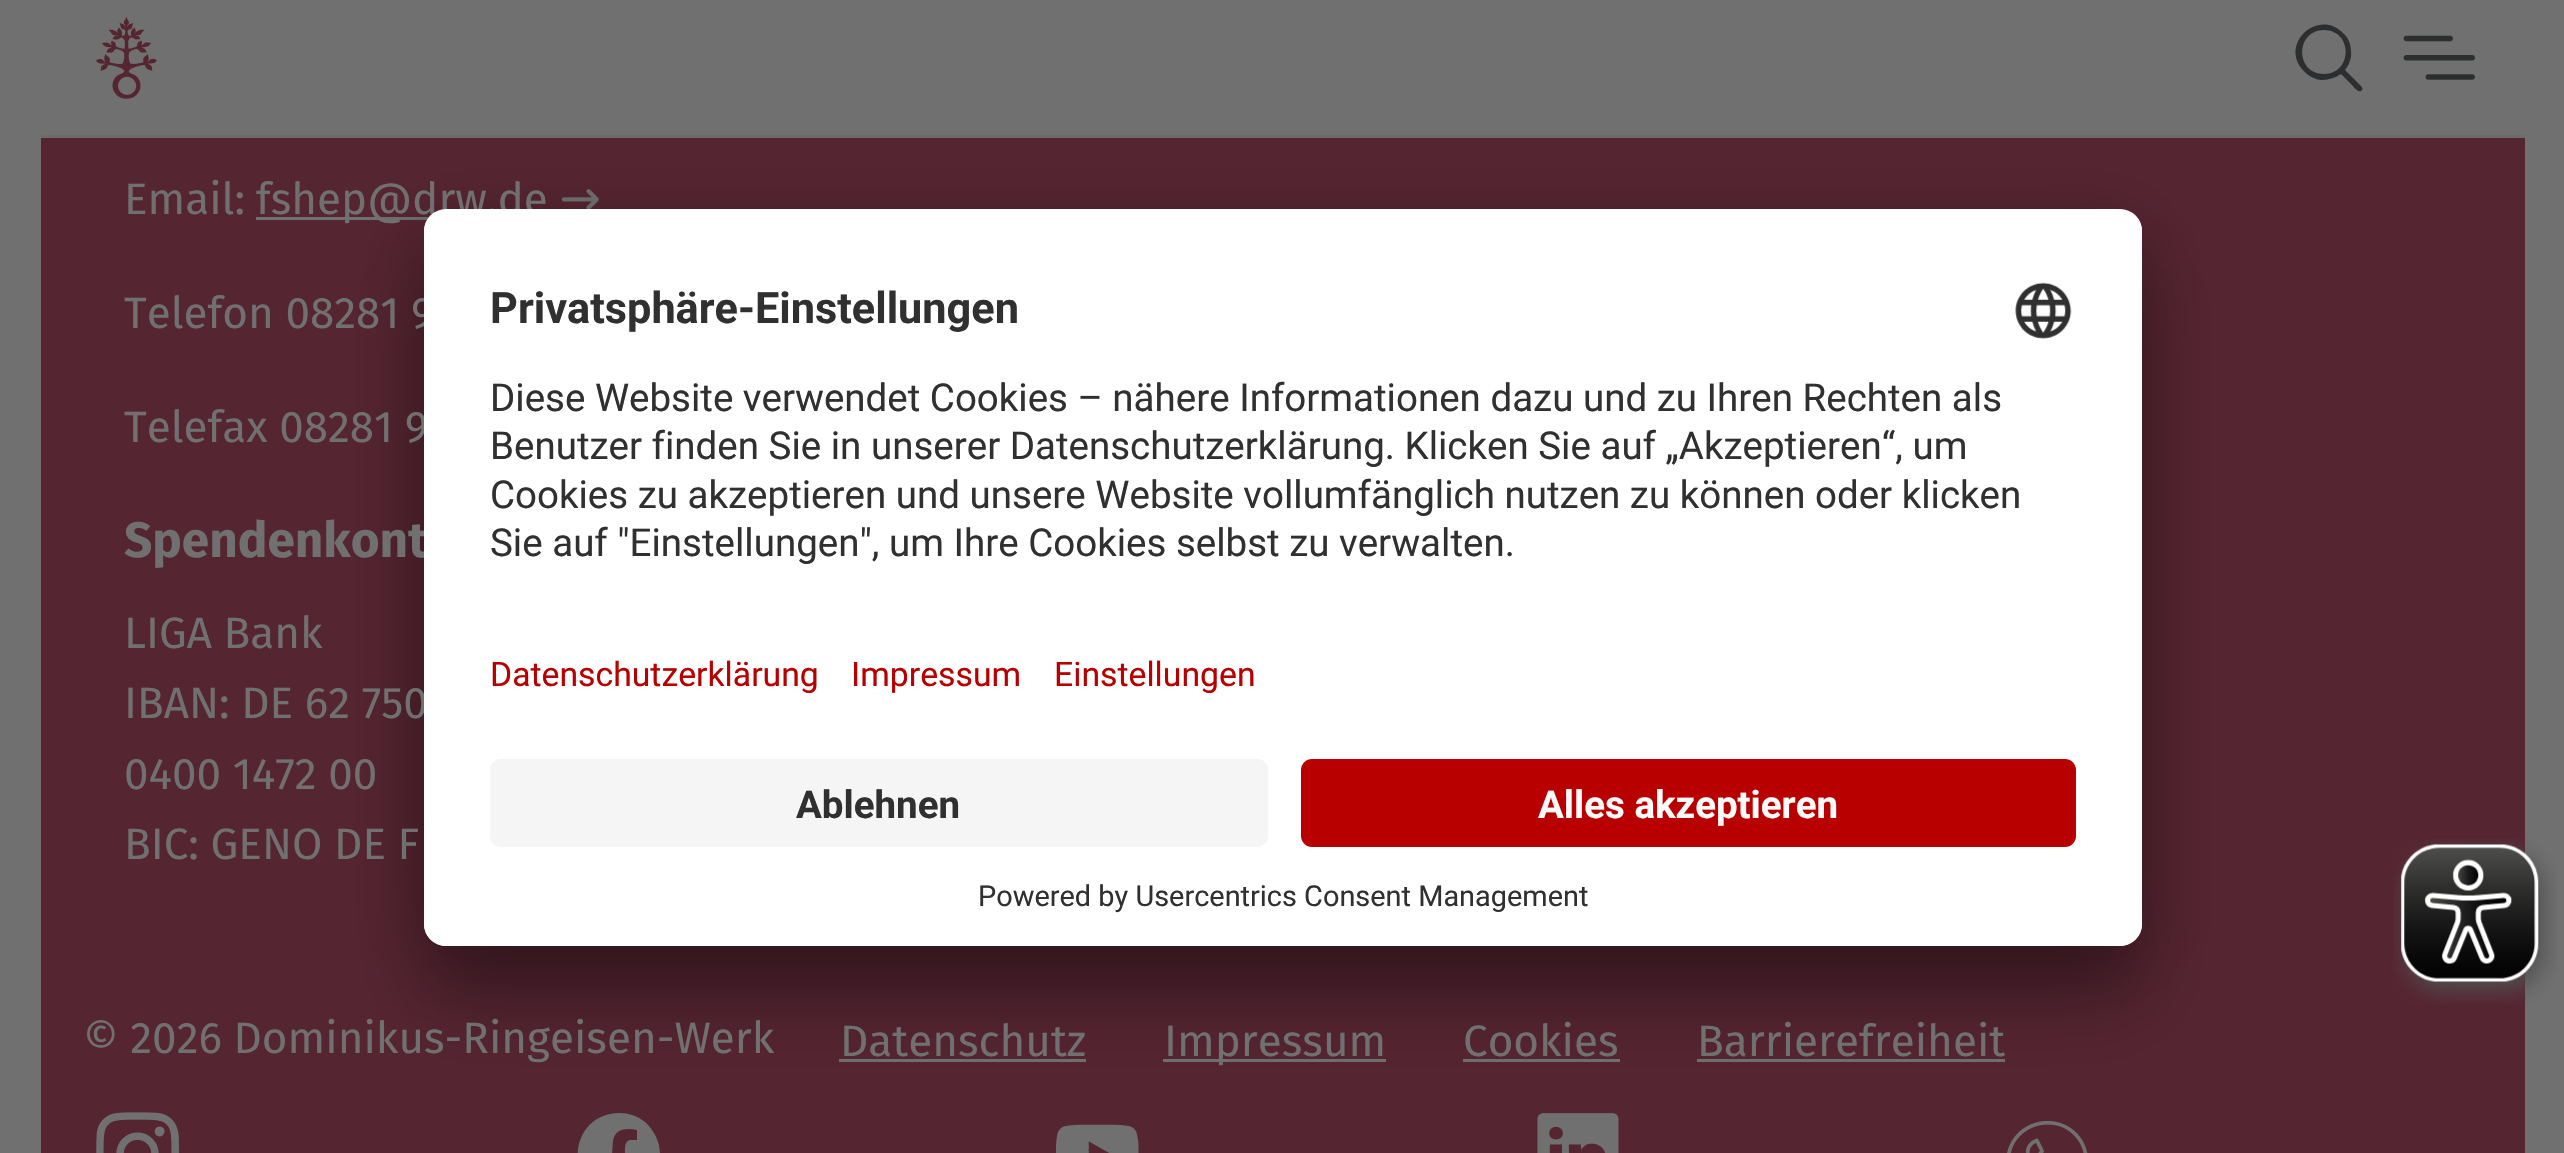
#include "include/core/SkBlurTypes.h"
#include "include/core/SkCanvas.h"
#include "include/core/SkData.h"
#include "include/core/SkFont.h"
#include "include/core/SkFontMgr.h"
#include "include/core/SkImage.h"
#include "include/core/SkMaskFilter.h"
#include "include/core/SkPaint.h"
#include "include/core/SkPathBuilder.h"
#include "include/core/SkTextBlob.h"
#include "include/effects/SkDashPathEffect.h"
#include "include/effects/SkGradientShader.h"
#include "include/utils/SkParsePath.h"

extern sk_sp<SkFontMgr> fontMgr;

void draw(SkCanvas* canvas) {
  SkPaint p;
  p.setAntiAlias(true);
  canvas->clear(SkColorSetRGB(112, 112, 112));
  p.setColor(SkColorSetRGB(108, 108, 107));
  canvas->drawRect(SkRect::MakeLTRB(41, 135, 2525, 138), p);
  canvas->drawImageRect(SkImages::DeferredFromEncodedData(SkData::MakeFromFileName("images/1.png")), SkRect::MakeLTRB(96, 16, 157, 99), SkSamplingOptions());
  p.setColor(SkColorSetRGB(45, 46, 47));
  canvas->drawPath(SkPathBuilder().moveTo(2361, 86).lineTo(2345, 70).cubicTo(2349, 65, 2352, 58, 2351, 51).cubicTo(2351, 44, 2348, 37, 2343, 33).cubicTo(2321, 10, 2284, 38, 2299, 65).cubicTo(2304, 73, 2312, 79, 2321, 80).cubicTo(2328, 80, 2335, 78, 2341, 74).lineTo(2352, 85).cubicTo(2353, 86, 2358, 93, 2361, 91).cubicTo(2363, 90, 2363, 88, 2361, 86).close().moveTo(2324, 74).cubicTo(2295, 74, 2295, 30, 2324, 30).cubicTo(2353, 30, 2353, 74, 2324, 74).close().detach(), p);
  canvas->drawImageRect(SkImages::DeferredFromEncodedData(SkData::MakeFromFileName("images/2.png")), SkRect::MakeLTRB(2403, 35, 2475, 80), SkSamplingOptions());
  p.setColor(SkColorSetRGB(86, 37, 50));
  canvas->drawRect(SkRect::MakeLTRB(41, 138, 2525, 1153), p);
  p.setColor(SkColorSetRGB(112, 112, 112));
  canvas->drawRect(SkRect::MakeLTRB(256, 217, 429, 220), p);
  canvas->drawImageRect(SkImages::DeferredFromEncodedData(SkData::MakeFromFileName("images/3.png")), SkRect::MakeLTRB(561, 189, 599, 209), SkSamplingOptions());
  canvas->drawRect(SkRect::MakeLTRB(839, 1059, 1086, 1062), p);
  canvas->drawRect(SkRect::MakeLTRB(1163, 1059, 1386, 1062), p);
  canvas->drawRect(SkRect::MakeLTRB(1463, 1059, 1620, 1062), p);
  canvas->drawRect(SkRect::MakeLTRB(1697, 1059, 2005, 1062), p);
  canvas->drawImageRect(SkImages::DeferredFromEncodedData(SkData::MakeFromFileName("images/4.png")), SkRect::MakeLTRB(96, 1112, 179, 1153), SkSamplingOptions());
  canvas->drawPath(SkPathBuilder().moveTo(660, 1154).cubicTo(660, 1142, 654, 1130, 645, 1122).cubicTo(638, 1116, 628, 1113, 619, 1113).cubicTo(578, 1113, 563, 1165, 595, 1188).cubicTo(599, 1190, 603, 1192, 607, 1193).lineTo(612, 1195).lineTo(612, 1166).lineTo(602, 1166).lineTo(602, 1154).lineTo(612, 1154).lineTo(613, 1141).cubicTo(615, 1128, 627, 1128, 637, 1130).lineTo(637, 1140).lineTo(630, 1140).cubicTo(624, 1141, 625, 1150, 625, 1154).lineTo(637, 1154).lineTo(635, 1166).lineTo(625, 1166).lineTo(625, 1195).cubicTo(645, 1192, 660, 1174, 660, 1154).close().detach(), p);
  canvas->drawImageRect(SkImages::DeferredFromEncodedData(SkData::MakeFromFileName("images/5.png")), SkRect::MakeLTRB(1056, 1124, 1139, 1153), SkSamplingOptions());
  canvas->drawImageRect(SkImages::DeferredFromEncodedData(SkData::MakeFromFileName("images/6.png")), SkRect::MakeLTRB(1537, 1113, 1619, 1153), SkSamplingOptions());
  canvas->drawImageRect(SkImages::DeferredFromEncodedData(SkData::MakeFromFileName("images/7.png")), SkRect::MakeLTRB(2007, 1121, 2088, 1153), SkSamplingOptions());
  p.setColor(SkColorSetARGB(77, 0, 0, 0));
  p.setMaskFilter(SkMaskFilter::MakeBlur(kNormal_SkBlurStyle, 38.5f));
  canvas->drawRoundRect(SkRect::MakeLTRB(424, 264, 2142, 1001), 22, 22, p);
  p.setMaskFilter(nullptr);
  p.setColor(SkColorSetARGB(56, 0, 0, 0));
  p.setMaskFilter(SkMaskFilter::MakeBlur(kNormal_SkBlurStyle, 36));
  canvas->drawRoundRect(SkRect::MakeLTRB(424, 223, 2142, 960), 22, 22, p);
  p.setMaskFilter(nullptr);
  canvas->drawImageRect(SkImages::DeferredFromEncodedData(SkData::MakeFromFileName("images/9.png")), SkRect::MakeLTRB(2393, 839, 2557, 1004), SkSamplingOptions());
  SkFont font1(fontMgr->matchFamilyStyle("Fira Sans", SkFontStyle::Normal()), 44);
  font1.setSubpixel(true);
  p.setColor(SkColorSetRGB(112, 112, 112));
  canvas->drawString("Email:", 124, 214, font1, p);
  canvas->drawString("fshep@drw.de", 256, 214, font1, p);
  canvas->drawString("Telefon 08281 9", 124, 328, font1, p);
  canvas->drawString("Telefax 08281 9", 124, 442, font1, p);
  SkFont font2(fontMgr->matchFamilyStyle("Fira Sans", SkFontStyle::Bold()), 49.5f);
  font2.setSubpixel(true);
  canvas->drawString("Spendenkont", 124, 557, font2, p);
  canvas->drawString("LIGA Bank", 124, 648, font1, p);
  canvas->drawString("IBAN: DE 62 750", 124, 718, font1, p);
  canvas->drawString("0400 1472 00", 124, 789, font1, p);
  canvas->drawString("BIC: GENO DE F", 124, 859, font1, p);
  canvas->drawString("© 2026 Dominikus-Ringeisen-Werk", 83, 1053, font1, p);
  canvas->drawString("Datenschutz", 840, 1056, font1, p);
  canvas->drawString("Impressum", 1164, 1056, font1, p);
  canvas->drawString("Cookies", 1463, 1056, font1, p);
  canvas->drawString("Barrierefreiheit", 1697, 1056, font1, p);
  p.setColor(SK_ColorWHITE);
  canvas->drawRoundRect(SkRect::MakeLTRB(424, 209, 2142, 946), 22, 22, p);
  canvas->save();
  canvas->clipPath(SkPathBuilder().moveTo(446, 209).lineTo(2120, 209).cubicTo(2132, 209, 2142, 219, 2142, 231).lineTo(2142, 924).cubicTo(2142, 936, 2132, 946, 2120, 946).lineTo(446, 946).cubicTo(434, 946, 424, 936, 424, 924).lineTo(424, 231).cubicTo(424, 219, 434, 209, 446, 209).close().detach(), true);
  canvas->clipPath(SkPathBuilder().moveTo(446, 209).lineTo(2120, 209).cubicTo(2132, 209, 2142, 219, 2142, 231).lineTo(2142, 737).lineTo(424, 737).lineTo(424, 231).cubicTo(424, 219, 434, 209, 446, 209).close().detach(), true);
  canvas->drawRect(SkRect::MakeLTRB(424, 212, 2142, 737), p);
  canvas->restore();
  SkFont font3(fontMgr->matchFamilyStyle("Roboto", SkFontStyle::Bold()), 43.25f);
  font3.setSubpixel(true);
  p.setColor(SkColorSetRGB(48, 48, 48));
  canvas->drawString("Privatsphäre-Einstellungen", 490, 323, font3, p);
  canvas->drawImageRect(SkImages::DeferredFromEncodedData(SkData::MakeFromFileName("images/8.png")), SkRect::MakeLTRB(2015, 282, 2072, 339), SkSamplingOptions());
  SkFont font4(fontMgr->matchFamilyStyle("Roboto", SkFontStyle::Normal()), 38.5f);
  font4.setSubpixel(true);
  canvas->drawString("Diese Website verwendet Cookies – nähere Informationen dazu und zu Ihren Rechten als", 490, 411, font4, p);
  canvas->drawString("Benutzer finden Sie in unserer Datenschutzerklärung. Klicken Sie auf „Akzeptieren“, um", 490, 459, font4, p);
  canvas->drawString("Cookies zu akzeptieren und unsere Website vollumfänglich nutzen zu können oder klicken", 490, 508, font4, p);
  canvas->drawString("Sie auf \"Einstellungen\", um Ihre Cookies selbst zu verwalten.", 490, 556, font4, p);
  SkFont font5(fontMgr->matchFamilyStyle("Roboto", SkFontStyle::Normal()), 33.75f);
  font5.setSubpixel(true);
  p.setColor(SkColorSetRGB(184, 0, 0));
  canvas->drawString("Datenschutzerklärung", 490, 686, font5, p);
  canvas->drawString("Impressum", 851, 686, font5, p);
  canvas->drawString("Einstellungen", 1054, 686, font5, p);
  p.setColor(SK_ColorWHITE);
  canvas->drawPath(SkPathBuilder().moveTo(424, 737).lineTo(2142, 737).lineTo(2142, 924).cubicTo(2142, 936, 2132, 946, 2120, 946).lineTo(446, 946).cubicTo(434, 946, 424, 936, 424, 924).close().detach(), p);
  p.setColor(SkColorSetRGB(245, 245, 245));
  canvas->drawRoundRect(SkRect::MakeLTRB(490, 759, 1268, 847), 11, 11, p);
  SkFont font6(fontMgr->matchFamilyStyle("Roboto", SkFontStyle::Bold()), 38.5f);
  font6.setSubpixel(true);
  p.setColor(SkColorSetRGB(48, 48, 48));
  canvas->drawString("Ablehnen", 796, 818, font6, p);
  p.setColor(SkColorSetRGB(184, 0, 0));
  canvas->drawRoundRect(SkRect::MakeLTRB(1301, 759, 2076, 847), 11, 11, p);
  p.setColor(SkColorSetRGB(250, 250, 250));
  canvas->drawString("Alles akzeptieren", 1538, 818, font6, p);
  SkFont font7(fontMgr->matchFamilyStyle("Roboto", SkFontStyle::Normal()), 28.9f);
  font7.setSubpixel(true);
  p.setColor(SkColorSetRGB(48, 48, 48));
  canvas->drawString("Powered by Usercentrics Consent Management", 978, 906, font7, p);
}
